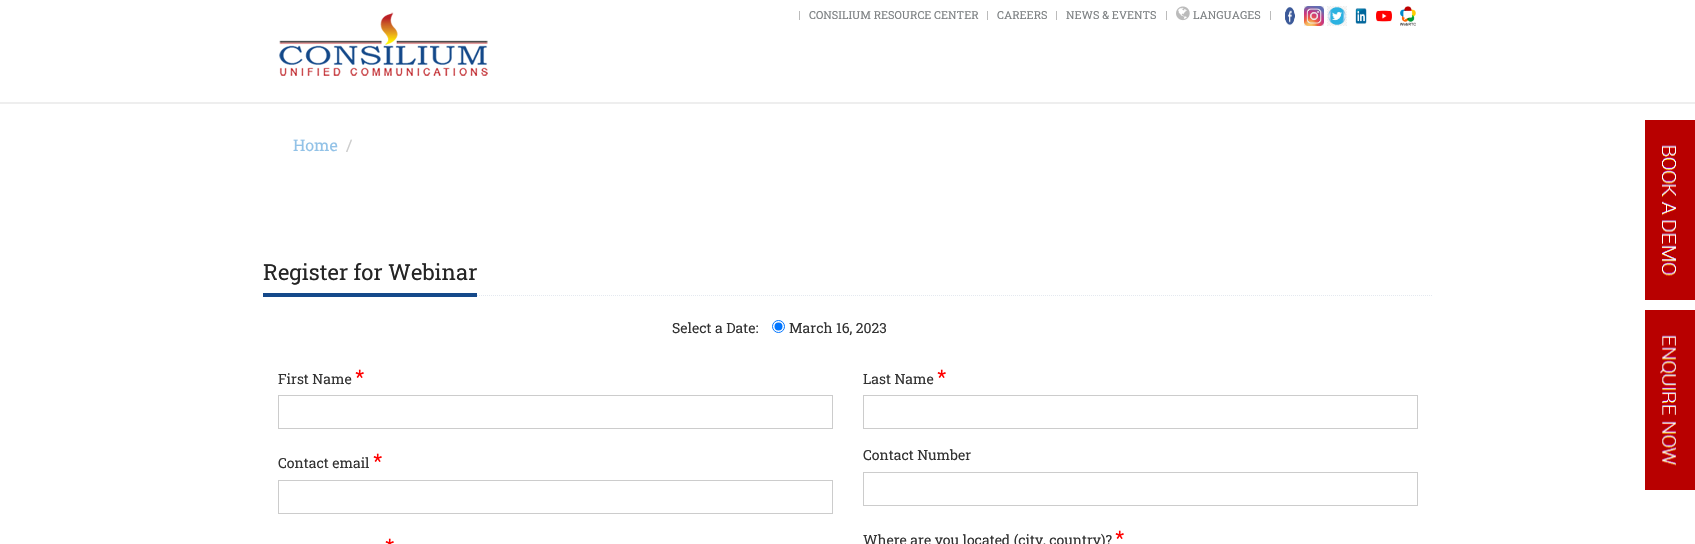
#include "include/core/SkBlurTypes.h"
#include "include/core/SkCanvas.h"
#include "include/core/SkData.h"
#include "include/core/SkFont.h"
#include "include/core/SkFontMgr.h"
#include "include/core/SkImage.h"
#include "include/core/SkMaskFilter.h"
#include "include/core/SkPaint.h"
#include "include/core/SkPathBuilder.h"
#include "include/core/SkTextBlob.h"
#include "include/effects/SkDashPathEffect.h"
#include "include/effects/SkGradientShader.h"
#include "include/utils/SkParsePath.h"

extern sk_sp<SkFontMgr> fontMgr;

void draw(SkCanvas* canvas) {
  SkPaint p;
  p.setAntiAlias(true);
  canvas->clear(SK_ColorWHITE);
  p.setColor(SkColorSetRGB(238, 238, 238));
  canvas->drawRect(SkRect::MakeLTRB(0, 102, 1695, 104), p);
  canvas->drawImageRect(SkImages::DeferredFromEncodedData(SkData::MakeFromFileName("images/1.png")), SkRect::MakeLTRB(279, 12, 488, 76), SkSamplingOptions());
  p.setColor(SkColorSetRGB(187, 187, 187));
  canvas->drawRect(SkRect::MakeLTRB(799, 11, 800, 20), p);
  canvas->drawRect(SkRect::MakeLTRB(987, 11, 988, 20), p);
  canvas->drawRect(SkRect::MakeLTRB(1056, 11, 1057, 20), p);
  canvas->drawRect(SkRect::MakeLTRB(1166, 11, 1167, 20), p);
  canvas->drawImageRect(SkImages::DeferredFromEncodedData(SkData::MakeFromFileName("images/2.png")), SkRect::MakeLTRB(1176, 6, 1190, 21), SkSamplingOptions());
  canvas->drawRect(SkRect::MakeLTRB(1270, 11, 1271, 20), p);
  canvas->drawImageRect(SkImages::DeferredFromEncodedData(SkData::MakeFromFileName("images/3.png")), SkRect::MakeLTRB(1285, 7, 1295, 26), SkSamplingOptions());
  canvas->drawImageRect(SkImages::DeferredFromEncodedData(SkData::MakeFromFileName("images/4.png")), SkRect::MakeLTRB(1304, 6, 1324, 26), SkSamplingOptions());
  canvas->drawImageRect(SkImages::DeferredFromEncodedData(SkData::MakeFromFileName("images/5.png")), SkRect::MakeLTRB(1327, 6, 1347, 26), SkSamplingOptions());
  canvas->drawImageRect(SkImages::DeferredFromEncodedData(SkData::MakeFromFileName("images/6.png")), SkRect::MakeLTRB(1355, 8, 1367, 24), SkSamplingOptions());
  canvas->drawImageRect(SkImages::DeferredFromEncodedData(SkData::MakeFromFileName("images/7.png")), SkRect::MakeLTRB(1376, 10, 1392, 22), SkSamplingOptions());
  canvas->drawImageRect(SkImages::DeferredFromEncodedData(SkData::MakeFromFileName("images/8.png")), SkRect::MakeLTRB(1400, 6, 1416, 26), SkSamplingOptions());
  canvas->drawImageRect(SkImages::DeferredFromEncodedData(SkData::MakeFromFileName("images/9.png")), SkRect::MakeLTRB(1645, 120, 1695, 300), SkSamplingOptions());
  canvas->drawImageRect(SkImages::DeferredFromEncodedData(SkData::MakeFromFileName("images/10.png")), SkRect::MakeLTRB(1645, 310, 1695, 490), SkSamplingOptions());
  p.setStyle(SkPaint::kStroke_Style);
  p.setStrokeWidth(1);
  p.setColor(SkColorSetRGB(228, 233, 240));
  p.setPathEffect(SkDashPathEffect::Make({{1, 1}}, 0));
  canvas->drawPath(SkPathBuilder().moveTo(263, 295.5f).lineTo(1433, 295.5f).detach(), p);
  p.setPathEffect(nullptr);
  p.setStyle(SkPaint::kFill_Style);
  p.setColor(SkColorSetRGB(21, 73, 138));
  canvas->drawRect(SkRect::MakeLTRB(263, 293, 477, 297), p);
  p.setStyle(SkPaint::kStroke_Style);
  p.setColor(SkColorSetRGB(0, 117, 255));
  canvas->drawCircle(778.5f, 326.5f, 6, p);
  p.setStyle(SkPaint::kFill_Style);
  canvas->drawCircle(778.5f, 326.5f, 4, p);
  p.setStyle(SkPaint::kStroke_Style);
  p.setColor(SkColorSetRGB(204, 204, 204));
  canvas->drawRect(SkRect::MakeLTRB(278.5f, 395.5f, 832.5f, 428.5f), p);
  canvas->drawRect(SkRect::MakeLTRB(278.5f, 480.5f, 832.5f, 513.5f), p);
  canvas->drawRect(SkRect::MakeLTRB(863.5f, 395.5f, 1417.5f, 428.5f), p);
  canvas->drawRect(SkRect::MakeLTRB(863.5f, 472.5f, 1417.5f, 505.5f), p);
  SkFont font1(fontMgr->matchFamilyStyle("Roboto Slab", SkFontStyle::Normal()), 11);
  font1.setSubpixel(true);
  p.setStyle(SkPaint::kFill_Style);
  p.setColor(SkColorSetRGB(124, 128, 130));
  canvas->drawString("CONSILIUM RESOURCE CENTER", 809, 19, font1, p);
  canvas->drawString("CAREERS", 997, 19, font1, p);
  canvas->drawString("NEWS & EVENTS", 1066, 19, font1, p);
  canvas->drawString("LANGUAGES", 1193, 19, font1, p);
  SkFont font2(fontMgr->matchFamilyStyle("Roboto Slab", SkFontStyle::Normal()), 16);
  font2.setSubpixel(true);
  p.setColor(SkColorSetRGB(146, 194, 231));
  canvas->drawString("Home", 293, 151, font2, p);
  p.setColor(SkColorSetRGB(204, 204, 204));
  canvas->drawString("/", 346, 151, font2, p);
  SkFont font3(fontMgr->matchFamilyStyle("Roboto Slab", SkFontStyle::Normal()), 22);
  font3.setSubpixel(true);
  p.setColor(SkColorSetRGB(37, 37, 37));
  canvas->drawString("Register for Webinar", 263, 280, font3, p);
  SkFont font4(fontMgr->matchFamilyStyle("Roboto Slab", SkFontStyle::Normal()), 14);
  font4.setSubpixel(true);
  p.setColor(SkColorSetRGB(51, 51, 51));
  canvas->drawString("Select a Date:", 672, 333, font4, p);
  canvas->drawString("March 16, 2023", 789, 333, font4, p);
  canvas->drawString("First Name", 278, 384, font4, p);
  SkFont font5(fontMgr->matchFamilyStyle("Roboto Slab", SkFontStyle::Normal()), 20);
  font5.setSubpixel(true);
  p.setColor(SkColorSetRGB(255, 0, 0));
  canvas->drawString("*", 355, 384, font5, p);
  p.setColor(SkColorSetRGB(51, 51, 51));
  canvas->drawString("Contact email", 278, 468, font4, p);
  p.setColor(SkColorSetRGB(255, 0, 0));
  canvas->drawString("*", 373, 468, font5, p);
  canvas->drawString("*", 385, 553, font5, p);
  p.setColor(SkColorSetRGB(51, 51, 51));
  canvas->drawString("Last Name", 863, 384, font4, p);
  p.setColor(SkColorSetRGB(255, 0, 0));
  canvas->drawString("*", 937, 384, font5, p);
  p.setColor(SkColorSetRGB(51, 51, 51));
  canvas->drawString("Contact Number", 863, 460, font4, p);
  canvas->drawString("Where are you located (city, country)?", 863, 545, font4, p);
  p.setColor(SkColorSetRGB(255, 0, 0));
  canvas->drawString("*", 1115, 545, font5, p);
}
